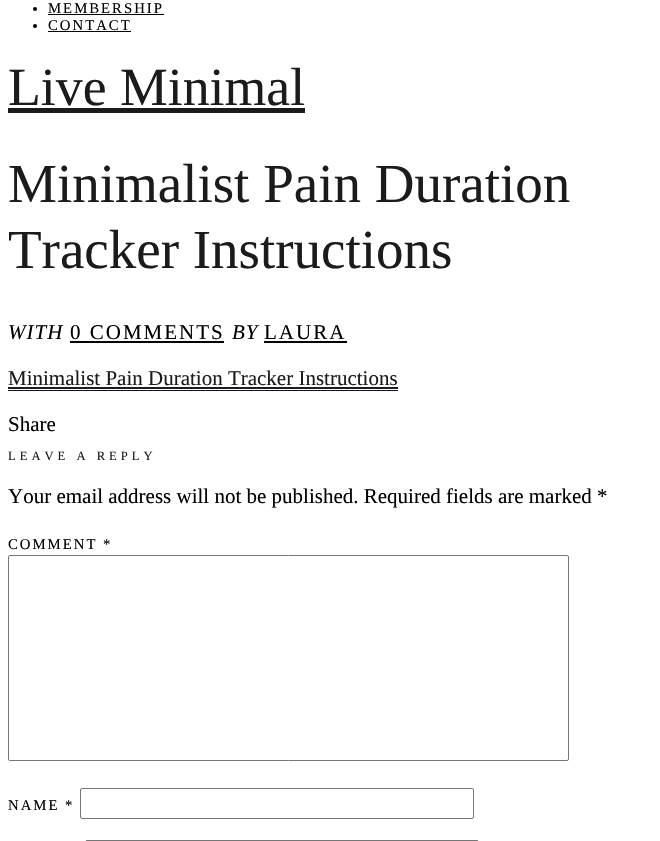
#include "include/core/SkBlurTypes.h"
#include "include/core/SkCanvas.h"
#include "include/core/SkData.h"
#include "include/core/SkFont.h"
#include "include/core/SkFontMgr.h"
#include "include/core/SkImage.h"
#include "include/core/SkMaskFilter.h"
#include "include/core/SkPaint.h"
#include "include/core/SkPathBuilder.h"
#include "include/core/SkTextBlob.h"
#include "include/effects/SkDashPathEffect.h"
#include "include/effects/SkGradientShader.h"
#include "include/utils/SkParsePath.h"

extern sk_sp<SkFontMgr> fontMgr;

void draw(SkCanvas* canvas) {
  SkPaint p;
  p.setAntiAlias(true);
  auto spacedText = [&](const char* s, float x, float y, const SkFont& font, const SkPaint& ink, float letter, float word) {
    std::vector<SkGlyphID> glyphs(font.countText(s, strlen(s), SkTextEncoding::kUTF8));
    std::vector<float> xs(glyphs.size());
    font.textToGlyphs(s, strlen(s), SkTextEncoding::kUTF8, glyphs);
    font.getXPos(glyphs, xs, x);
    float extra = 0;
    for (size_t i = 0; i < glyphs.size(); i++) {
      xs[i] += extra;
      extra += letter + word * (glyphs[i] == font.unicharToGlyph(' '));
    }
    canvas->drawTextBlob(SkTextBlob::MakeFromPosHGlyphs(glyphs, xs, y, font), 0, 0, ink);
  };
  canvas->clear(SK_ColorWHITE);
  p.setColor(SK_ColorBLACK);
  canvas->drawCircle(35, 9, 2, p);
  canvas->drawRect(SkRect::MakeLTRB(48, 14, 164, 15), p);
  canvas->drawCircle(35, 26, 2, p);
  canvas->drawRect(SkRect::MakeLTRB(48, 31, 131, 32), p);
  p.setColor(SkColorSetRGB(27, 27, 27));
  canvas->drawRect(SkRect::MakeLTRB(8, 108, 305, 113), p);
  p.setColor(SK_ColorBLACK);
  canvas->drawRect(SkRect::MakeLTRB(70, 341, 224, 343), p);
  canvas->drawRect(SkRect::MakeLTRB(264, 341, 347, 343), p);
  p.setColor(SkColorSetRGB(16, 16, 32));
  canvas->drawRect(SkRect::MakeLTRB(8, 390, 398, 391), p);
  p.setColor(SkColorSetRGB(27, 27, 27));
  canvas->drawRect(SkRect::MakeLTRB(8, 387, 398, 389), p);
  p.setStyle(SkPaint::kStroke_Style);
  p.setStrokeWidth(1);
  p.setColor(SkColorSetRGB(118, 118, 118));
  canvas->drawRoundRect(SkRect::MakeLTRB(8.5f, 555.5f, 568.5f, 760.5f), 1.5f, 1.5f, p);
  canvas->drawRoundRect(SkRect::MakeLTRB(80.5f, 788.5f, 473.5f, 818.5f), 1.5f, 1.5f, p);
  canvas->drawRoundRect(SkRect::MakeLTRB(85.5f, 840.5f, 478.5f, 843.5f), 1.5f, 1.5f, p);
  SkFont font1(fontMgr->matchFamilyStyle("Liberation Serif", SkFontStyle::Normal()), 14.75f);
  font1.setSubpixel(true);
  p.setStyle(SkPaint::kFill_Style);
  p.setColor(SK_ColorBLACK);
  spacedText("MEMBERSHIP", 48, 13, font1, p, 2, 0);
  spacedText("CONTACT", 48, 30, font1, p, 2, 0);
  SkFont font2(fontMgr->matchFamilyStyle("Liberation Serif", SkFontStyle::Normal()), 53.75f);
  font2.setSubpixel(true);
  p.setColor(SkColorSetRGB(27, 27, 27));
  canvas->drawString("Live Minimal", 8, 105, font2, p);
  SkFont font3(fontMgr->matchFamilyStyle("Liberation Serif", SkFontStyle::Normal()), 55);
  font3.setSubpixel(true);
  canvas->drawString("Minimalist Pain Duration", 8, 202, font3, p);
  canvas->drawString("Tracker Instructions", 8, 268, font3, p);
  SkFont font4(fontMgr->matchFamilyStyle("Liberation Serif", SkFontStyle::Italic()), 21);
  font4.setSubpixel(true);
  p.setColor(SK_ColorBLACK);
  spacedText("WITH", 8, 339, font4, p, 1, 0);
  SkFont font5(fontMgr->matchFamilyStyle("Liberation Serif", SkFontStyle::Normal()), 21);
  font5.setSubpixel(true);
  spacedText("0 COMMENTS", 70, 339, font5, p, 2, 0);
  spacedText("BY", 232, 339, font4, p, 1, 0);
  spacedText("LAURA", 264, 339, font5, p, 2, 0);
  p.setColor(SkColorSetRGB(27, 27, 27));
  canvas->drawString("Minimalist Pain Duration Tracker Instructions", 8, 385, font5, p);
  p.setColor(SK_ColorBLACK);
  canvas->drawString("Share", 8, 431, font5, p);
  SkFont font6(fontMgr->matchFamilyStyle("Liberation Serif", SkFontStyle::Normal()), 12.6f);
  font6.setSubpixel(true);
  p.setColor(SkColorSetRGB(27, 27, 27));
  spacedText("LEAVE A REPLY", 8, 460, font6, p, 4, 0);
  p.setColor(SK_ColorBLACK);
  canvas->drawString("Your email address will not be published. Required fields are marked *", 8, 503, font5, p);
  spacedText("COMMENT *", 8, 549, font1, p, 2, 0);
  spacedText("NAME *", 8, 810, font1, p, 2, 0);
}
